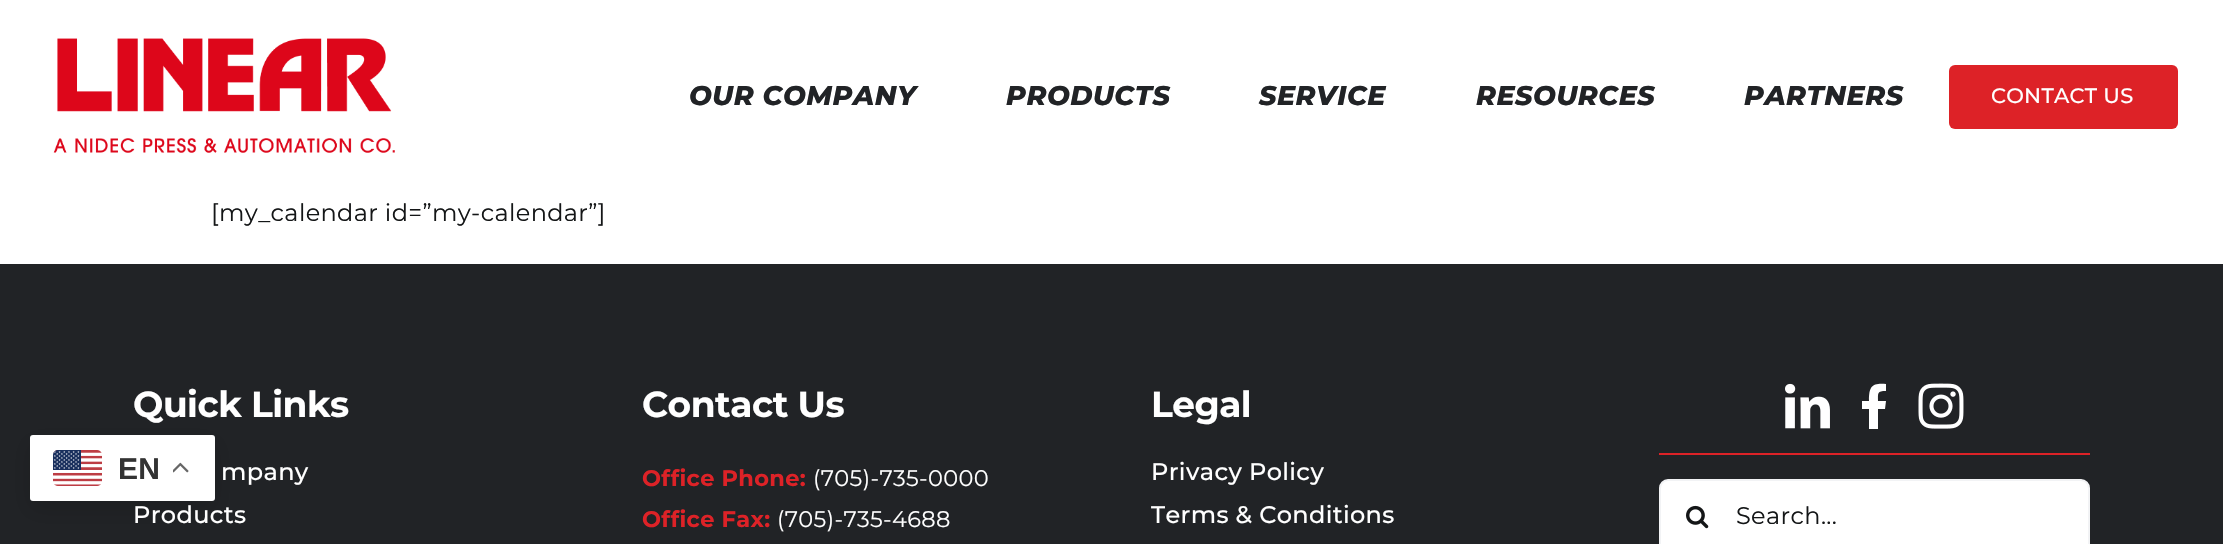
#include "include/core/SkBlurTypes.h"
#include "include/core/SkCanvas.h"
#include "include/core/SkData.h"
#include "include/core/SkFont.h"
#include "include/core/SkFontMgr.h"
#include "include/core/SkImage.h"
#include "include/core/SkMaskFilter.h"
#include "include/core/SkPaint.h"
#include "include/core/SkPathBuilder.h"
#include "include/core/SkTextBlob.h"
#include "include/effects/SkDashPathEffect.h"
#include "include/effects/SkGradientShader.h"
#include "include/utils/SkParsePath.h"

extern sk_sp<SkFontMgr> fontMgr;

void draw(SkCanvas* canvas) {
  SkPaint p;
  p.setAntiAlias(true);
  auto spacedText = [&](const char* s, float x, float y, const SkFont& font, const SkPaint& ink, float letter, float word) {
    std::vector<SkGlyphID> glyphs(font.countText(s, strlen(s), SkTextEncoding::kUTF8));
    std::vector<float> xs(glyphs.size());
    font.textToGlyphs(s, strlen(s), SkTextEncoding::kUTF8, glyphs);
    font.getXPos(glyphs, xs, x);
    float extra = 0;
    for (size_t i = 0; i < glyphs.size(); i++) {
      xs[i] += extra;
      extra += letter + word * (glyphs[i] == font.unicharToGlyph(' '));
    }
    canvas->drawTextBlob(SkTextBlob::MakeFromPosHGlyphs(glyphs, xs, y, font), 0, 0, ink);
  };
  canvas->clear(SK_ColorWHITE);
  canvas->drawImageRect(SkImages::DeferredFromEncodedData(SkData::MakeFromFileName("images/1.png")), SkRect::MakeLTRB(53, 38, 395, 153), SkSamplingOptions());
  p.setColor(SkColorSetRGB(221, 34, 39));
  canvas->drawRoundRect(SkRect::MakeLTRB(1949, 65, 2178, 129), 6, 6, p);
  p.setColor(SkColorSetRGB(33, 35, 38));
  canvas->drawRect(SkRect::MakeLTRB(0, 264, 2223, 544), p);
  canvas->drawImageRect(SkImages::DeferredFromEncodedData(SkData::MakeFromFileName("images/2.png")), SkRect::MakeLTRB(1785, 383, 1830, 429), SkSamplingOptions());
  p.setColor(SK_ColorWHITE);
  canvas->drawPath(SkPathBuilder().moveTo(1885, 409).lineTo(1878, 409).lineTo(1878, 429).lineTo(1869, 429).lineTo(1869, 409).lineTo(1862, 409).lineTo(1862, 401).lineTo(1869, 401).cubicTo(1869, 386, 1872, 383, 1886, 384).lineTo(1886, 391).cubicTo(1877, 391, 1878, 393, 1878, 401).lineTo(1886, 401).close().detach(), p);
  canvas->drawImageRect(SkImages::DeferredFromEncodedData(SkData::MakeFromFileName("images/3.png")), SkRect::MakeLTRB(1918, 383, 1964, 429), SkSamplingOptions());
  p.setColor(SkColorSetRGB(221, 34, 39));
  canvas->drawRect(SkRect::MakeLTRB(1659, 453, 2090, 455), p);
  p.setColor(SK_ColorWHITE);
  canvas->drawRoundRect(SkRect::MakeLTRB(1660, 480, 2089, 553), 8, 8, p);
  p.setStyle(SkPaint::kStroke_Style);
  p.setStrokeWidth(2);
  p.setColor(SkColorSetRGB(242, 243, 245));
  canvas->drawRoundRect(SkRect::MakeLTRB(1660, 480, 2089, 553), 8, 8, p);
  canvas->drawImageRect(SkImages::DeferredFromEncodedData(SkData::MakeFromFileName("images/4.png")), SkRect::MakeLTRB(1686, 505, 1709, 529), SkSamplingOptions());
  p.setStyle(SkPaint::kFill_Style);
  p.setColor(SkColorSetARGB(38, 0, 0, 0));
  p.setMaskFilter(SkMaskFilter::MakeBlur(kNormal_SkBlurStyle, 11));
  canvas->drawRoundRect(SkRect::MakeLTRB(30, 443, 215, 509), 3, 3, p);
  p.setMaskFilter(nullptr);
  p.setColor(SK_ColorWHITE);
  canvas->drawRoundRect(SkRect::MakeLTRB(30, 435, 215, 501), 3, 3, p);
  canvas->drawImageRect(SkImages::DeferredFromEncodedData(SkData::MakeFromFileName("images/5.png")), SkRect::MakeLTRB(53, 450, 102, 486), SkSamplingOptions());
  canvas->drawImageRect(SkImages::DeferredFromEncodedData(SkData::MakeFromFileName("images/6.png")), SkRect::MakeLTRB(173, 462, 189, 473), SkSamplingOptions());
  SkFont font1(fontMgr->matchFamilyStyle("Montserrat", SkFontStyle(800, SkFontStyle::kNormal_Width, SkFontStyle::kItalic_Slant)), 27);
  font1.setSubpixel(true);
  p.setColor(SkColorSetRGB(33, 35, 38));
  spacedText("OUR COMPANY", 689, 105, font1, p, 0.5f, 0);
  spacedText("PRODUCTS", 1006, 105, font1, p, 0.5f, 0);
  spacedText("SERVICE", 1259, 105, font1, p, 0.5f, 0);
  spacedText("RESOURCES", 1476, 105, font1, p, 0.5f, 0);
  spacedText("PARTNERS", 1744, 105, font1, p, 0.5f, 0);
  SkFont font2(fontMgr->matchFamilyStyle("Montserrat", SkFontStyle(500, SkFontStyle::kNormal_Width, SkFontStyle::kUpright_Slant)), 21);
  font2.setSubpixel(true);
  p.setColor(SK_ColorWHITE);
  spacedText("CONTACT US", 1991, 103, font2, p, 0.25f, 0);
  SkFont font3(fontMgr->matchFamilyStyle("Montserrat", SkFontStyle::Normal()), 24);
  font3.setSubpixel(true);
  p.setColor(SkColorSetRGB(20, 22, 23));
  spacedText("[my_calendar id=”my-calendar”]", 211, 221, font3, p, 0.35f, 0);
  SkFont font4(fontMgr->matchFamilyStyle("Montserrat", SkFontStyle::Bold()), 36);
  font4.setSubpixel(true);
  p.setColor(SK_ColorWHITE);
  spacedText("Quick Links", 133, 417, font4, p, -0.5f, 0);
  SkFont font5(fontMgr->matchFamilyStyle("Montserrat", SkFontStyle(500, SkFontStyle::kNormal_Width, SkFontStyle::kUpright_Slant)), 24);
  font5.setSubpixel(true);
  spacedText("mpany", 221, 480, font5, p, 0.35f, 0);
  spacedText("Products", 133, 523, font5, p, 0.35f, 0);
  spacedText("Contact Us", 642, 417, font4, p, -0.5f, 0);
  SkFont font6(fontMgr->matchFamilyStyle("Montserrat", SkFontStyle::Bold()), 22.5f);
  font6.setSubpixel(true);
  p.setColor(SkColorSetRGB(221, 34, 39));
  spacedText("Office Phone:", 642, 486, font6, p, 0.35f, 0);
  SkFont font7(fontMgr->matchFamilyStyle("Montserrat", SkFontStyle::Normal()), 22.5f);
  font7.setSubpixel(true);
  p.setColor(SK_ColorWHITE);
  spacedText("(705)-735-0000", 813, 486, font7, p, 0.35f, 0);
  p.setColor(SkColorSetRGB(221, 34, 39));
  spacedText("Office Fax:", 642, 527, font6, p, 0.35f, 0);
  p.setColor(SK_ColorWHITE);
  spacedText("(705)-735-4688", 777, 527, font7, p, 0.35f, 0);
  spacedText("Legal", 1151, 417, font4, p, -0.5f, 0);
  spacedText("Privacy Policy", 1151, 480, font5, p, 0.35f, 0);
  spacedText("Terms & Conditions", 1151, 523, font5, p, 0.35f, 0);
  p.setColor(SkColorSetRGB(20, 22, 23));
  spacedText("Search...", 1736, 524, font3, p, 0.35f, 0);
  SkFont font8(fontMgr->matchFamilyStyle("Liberation Sans", SkFontStyle::Bold()), 30);
  font8.setSubpixel(true);
  p.setColor(SkColorSetRGB(51, 51, 51));
  spacedText("EN", 118, 479, font8, p, 0.35f, 0);
}
